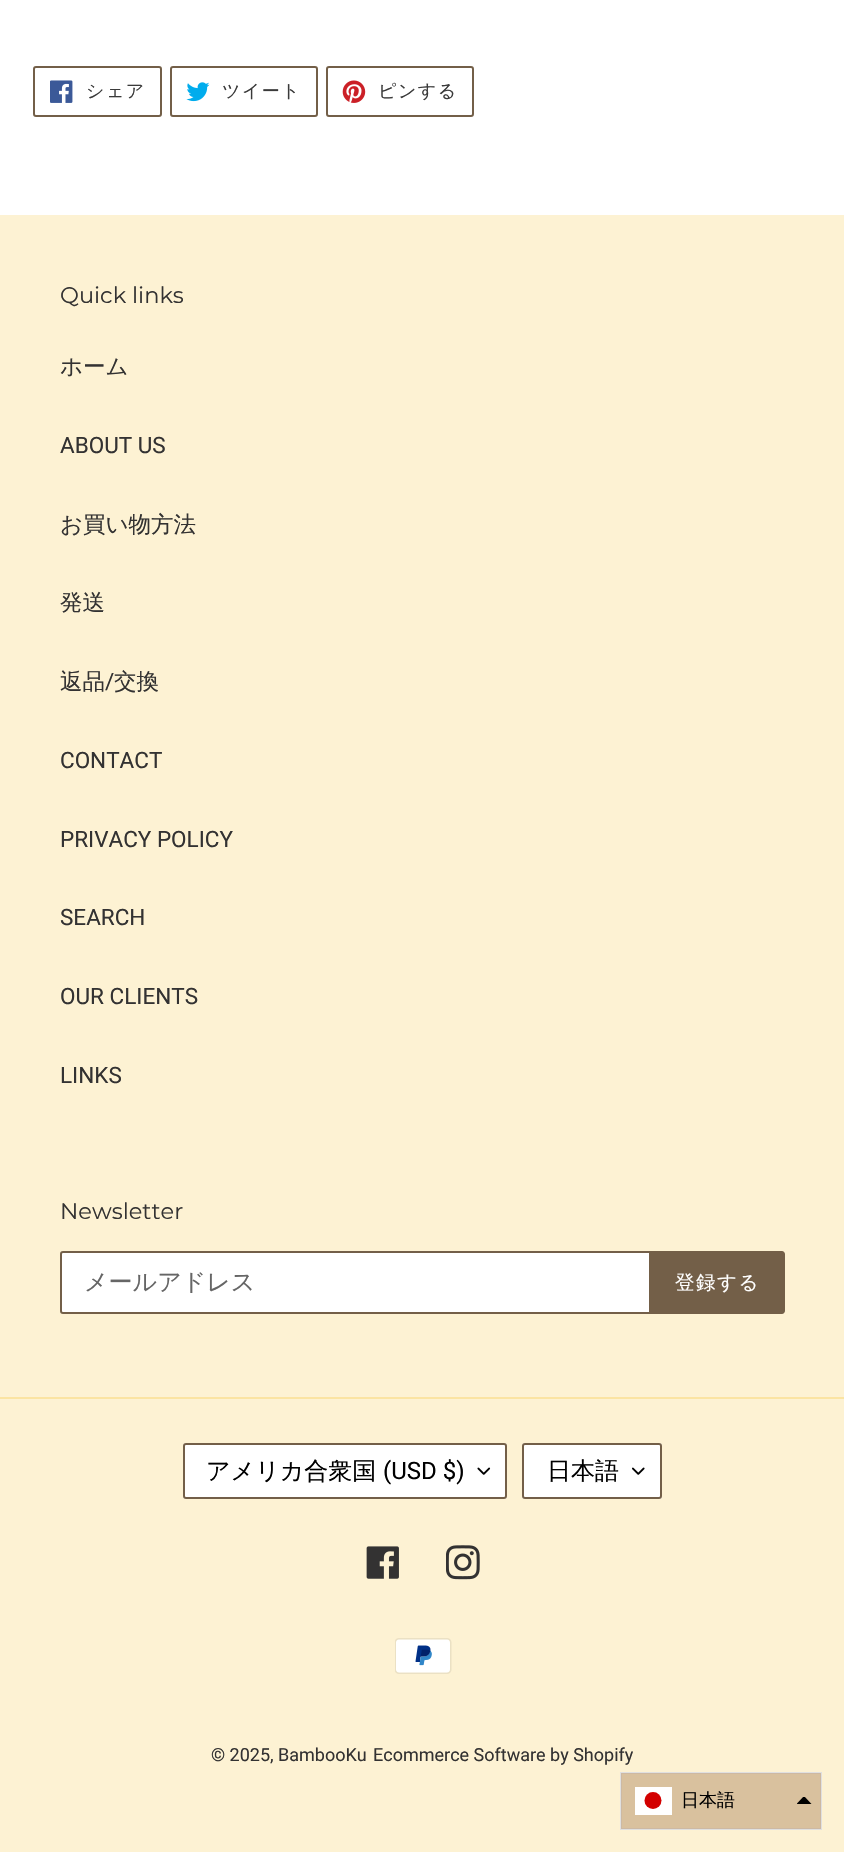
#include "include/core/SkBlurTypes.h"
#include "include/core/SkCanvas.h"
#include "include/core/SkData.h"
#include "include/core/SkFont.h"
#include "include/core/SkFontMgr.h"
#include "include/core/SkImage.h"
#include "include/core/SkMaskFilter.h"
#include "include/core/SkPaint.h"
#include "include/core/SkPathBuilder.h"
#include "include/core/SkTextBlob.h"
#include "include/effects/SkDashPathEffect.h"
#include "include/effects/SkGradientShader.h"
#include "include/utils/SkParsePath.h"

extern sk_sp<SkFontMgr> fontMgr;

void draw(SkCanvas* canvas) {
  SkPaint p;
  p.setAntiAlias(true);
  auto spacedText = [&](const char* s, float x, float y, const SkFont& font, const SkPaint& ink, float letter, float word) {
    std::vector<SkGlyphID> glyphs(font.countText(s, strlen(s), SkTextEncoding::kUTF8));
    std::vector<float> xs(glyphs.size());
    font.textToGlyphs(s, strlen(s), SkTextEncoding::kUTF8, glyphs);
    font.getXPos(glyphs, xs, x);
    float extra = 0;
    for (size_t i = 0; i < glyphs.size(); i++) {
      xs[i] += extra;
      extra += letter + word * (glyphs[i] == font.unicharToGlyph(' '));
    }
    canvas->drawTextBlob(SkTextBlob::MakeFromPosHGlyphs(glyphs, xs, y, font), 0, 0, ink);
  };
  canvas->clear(SK_ColorWHITE);
  p.setStyle(SkPaint::kStroke_Style);
  p.setStrokeWidth(2);
  p.setColor(SkColorSetRGB(115, 95, 72));
  canvas->drawRoundRect(SkRect::MakeLTRB(34, 67, 161, 116), 2, 2, p);
  canvas->drawImageRect(SkImages::DeferredFromEncodedData(SkData::MakeFromFileName("images/1.png")), SkRect::MakeLTRB(50, 80, 73, 103), SkSamplingOptions());
  canvas->drawRoundRect(SkRect::MakeLTRB(171, 67, 317, 116), 2, 2, p);
  canvas->drawImageRect(SkImages::DeferredFromEncodedData(SkData::MakeFromFileName("images/2.png")), SkRect::MakeLTRB(186, 82, 210, 102), SkSamplingOptions());
  canvas->drawRoundRect(SkRect::MakeLTRB(327, 67, 473, 116), 2, 2, p);
  canvas->drawImageRect(SkImages::DeferredFromEncodedData(SkData::MakeFromFileName("images/3.png")), SkRect::MakeLTRB(342, 80, 366, 103), SkSamplingOptions());
  p.setStyle(SkPaint::kFill_Style);
  p.setColor(SkColorSetRGB(253, 242, 211));
  canvas->drawRect(SkRect::MakeLTRB(0, 215, 844, 1852), p);
  p.setColor(SK_ColorWHITE);
  canvas->drawPath(SkPathBuilder().moveTo(63, 1252).lineTo(650, 1252).lineTo(650, 1313).lineTo(63, 1313).cubicTo(62, 1313, 61, 1312, 61, 1311).lineTo(61, 1254).cubicTo(61, 1253, 62, 1252, 63, 1252).close().detach(), p);
  p.setStyle(SkPaint::kStroke_Style);
  p.setColor(SkColorSetRGB(115, 95, 72));
  canvas->drawPath(SkPathBuilder().moveTo(63, 1252).lineTo(650, 1252).lineTo(650, 1313).lineTo(63, 1313).cubicTo(62, 1313, 61, 1312, 61, 1311).lineTo(61, 1254).cubicTo(61, 1253, 62, 1252, 63, 1252).close().detach(), p);
  p.setStyle(SkPaint::kFill_Style);
  canvas->drawPath(SkPathBuilder().moveTo(651, 1251).lineTo(782, 1251).cubicTo(783.5f, 1251, 785, 1252.5f, 785, 1254).lineTo(785, 1311).cubicTo(785, 1312.5f, 783.5f, 1314, 782, 1314).lineTo(651, 1314).close().detach(), p);
  p.setColor(SkColorSetRGB(251, 228, 162));
  canvas->drawRect(SkRect::MakeLTRB(0, 1397, 844, 1399), p);
  p.setColor(SK_ColorWHITE);
  canvas->drawRoundRect(SkRect::MakeLTRB(183, 1443, 507, 1499), 3, 3, p);
  canvas->drawImageRect(SkImages::DeferredFromEncodedData(SkData::MakeFromFileName("images/4.png")), SkRect::MakeLTRB(477, 1467, 491, 1475), SkSamplingOptions());
  p.setStyle(SkPaint::kStroke_Style);
  p.setColor(SkColorSetRGB(115, 95, 72));
  canvas->drawRoundRect(SkRect::MakeLTRB(184, 1444, 506, 1498), 2, 2, p);
  p.setStyle(SkPaint::kFill_Style);
  p.setColor(SK_ColorWHITE);
  canvas->drawRoundRect(SkRect::MakeLTRB(522, 1443, 662, 1499), 3, 3, p);
  canvas->drawImageRect(SkImages::DeferredFromEncodedData(SkData::MakeFromFileName("images/5.png")), SkRect::MakeLTRB(632, 1467, 645, 1475), SkSamplingOptions());
  p.setStyle(SkPaint::kStroke_Style);
  p.setColor(SkColorSetRGB(115, 95, 72));
  canvas->drawRoundRect(SkRect::MakeLTRB(523, 1444, 661, 1498), 2, 2, p);
  canvas->drawImageRect(SkImages::DeferredFromEncodedData(SkData::MakeFromFileName("images/6.png")), SkRect::MakeLTRB(366, 1546, 399, 1579), SkSamplingOptions());
  canvas->drawImageRect(SkImages::DeferredFromEncodedData(SkData::MakeFromFileName("images/7.png")), SkRect::MakeLTRB(446, 1545, 480, 1580), SkSamplingOptions());
  canvas->drawImageRect(SkImages::DeferredFromEncodedData(SkData::MakeFromFileName("images/8.png")), SkRect::MakeLTRB(395, 1638, 452, 1674), SkSamplingOptions());
  p.setColor(SkColorSetRGB(224, 224, 224));
  canvas->drawRect(SkRect::MakeLTRB(621, 1773, 821, 1829), p);
  p.setStyle(SkPaint::kFill_Style);
  p.setColor(SkColorSetARGB(148, 192, 156, 119));
  canvas->drawRect(SkRect::MakeLTRB(621, 1773, 821, 1829), p);
  p.setColor(SK_ColorWHITE);
  canvas->drawRect(SkRect::MakeLTRB(635, 1787, 672, 1815), p);
  p.setColor(SkColorSetRGB(211, 0, 0));
  canvas->drawCircle(653, 1800.5f, 8.5f, p);
  canvas->save();
  canvas->clipRect(SkRect::MakeLTRB(797, 1797, 812, 1805));
  p.setColor(SK_ColorBLACK);
  canvas->drawPath(SkPathBuilder(SkPathFillType::kEvenOdd).moveTo(796.5f, 1804).lineTo(804, 1796).lineTo(811.5f, 1804).close().detach(), p);
  canvas->restore();
  SkFont font1(fontMgr->matchFamilyStyle("WenQuanYi Zen Hei", SkFontStyle(500, SkFontStyle::kNormal_Width, SkFontStyle::kUpright_Slant)), 18);
  font1.setSubpixel(true);
  p.setColor(SkColorSetRGB(58, 58, 58));
  spacedText("シェア", 86, 97, font1, p, 1.5f, 0);
  spacedText("ツイート", 222, 97, font1, p, 1.5f, 0);
  spacedText("ピンする", 378, 97, font1, p, 1.5f, 0);
  SkFont font2(fontMgr->matchFamilyStyle("Montserrat", SkFontStyle::Normal()), 22.5f);
  font2.setSubpixel(true);
  p.setColor(SkColorSetRGB(51, 50, 50));
  canvas->drawString("Quick links", 60, 303, font2, p);
  SkFont font3(fontMgr->matchFamilyStyle("WenQuanYi Zen Hei", SkFontStyle(500, SkFontStyle::kNormal_Width, SkFontStyle::kUpright_Slant)), 22.5f);
  font3.setSubpixel(true);
  canvas->drawString("ホーム", 60, 374, font3, p);
  SkFont font4(fontMgr->matchFamilyStyle("Roboto", SkFontStyle::Normal()), 22.5f);
  font4.setSubpixel(true);
  canvas->drawString("ABOUT US", 60, 453, font4, p);
  canvas->drawString("お買い物方法", 60, 532, font3, p);
  canvas->drawString("発送", 60, 610, font3, p);
  canvas->drawString("返品", 60, 689, font3, p);
  canvas->drawString("/", 105, 689, font4, p);
  canvas->drawString("交換", 114, 689, font3, p);
  canvas->drawString("CONTACT", 60, 768, font4, p);
  canvas->drawString("PRIVACY POLICY", 60, 847, font4, p);
  canvas->drawString("SEARCH", 60, 925, font4, p);
  canvas->drawString("OUR CLIENTS", 60, 1004, font4, p);
  canvas->drawString("LINKS", 60, 1083, font4, p);
  canvas->drawString("Newsletter", 60, 1219, font2, p);
  SkFont font5(fontMgr->matchFamilyStyle("WenQuanYi Zen Hei", SkFontStyle(500, SkFontStyle::kNormal_Width, SkFontStyle::kUpright_Slant)), 24);
  font5.setSubpixel(true);
  p.setColor(SkColorSetRGB(102, 102, 102));
  canvas->drawString("メールアドレス", 84, 1290, font5, p);
  SkFont font6(fontMgr->matchFamilyStyle("WenQuanYi Zen Hei", SkFontStyle(500, SkFontStyle::kNormal_Width, SkFontStyle::kUpright_Slant)), 19.5f);
  font6.setSubpixel(true);
  p.setColor(SK_ColorWHITE);
  spacedText("登録する", 675, 1289, font6, p, 1.5f, 0);
  p.setColor(SK_ColorBLACK);
  canvas->drawString("アメリカ合衆国", 206, 1479, font5, p);
  SkFont font7(fontMgr->matchFamilyStyle("Roboto", SkFontStyle::Normal()), 24);
  font7.setSubpixel(true);
  canvas->drawString("(USD $)", 383, 1479, font7, p);
  canvas->drawString("日本語", 547, 1479, font5, p);
  SkFont font8(fontMgr->matchFamilyStyle("Roboto", SkFontStyle::Normal()), 18);
  font8.setSubpixel(true);
  p.setColor(SkColorSetRGB(51, 50, 50));
  canvas->drawString("© 2025, BambooKu", 211, 1761, font8, p);
  canvas->drawString("Ecommerce Software by Shopify", 373, 1761, font8, p);
  p.setColor(SK_ColorBLACK);
  canvas->drawString("日本語", 681, 1806, font1, p);
}
